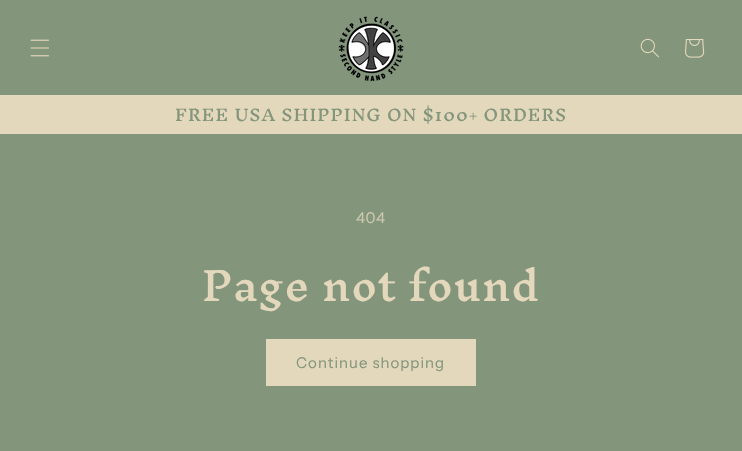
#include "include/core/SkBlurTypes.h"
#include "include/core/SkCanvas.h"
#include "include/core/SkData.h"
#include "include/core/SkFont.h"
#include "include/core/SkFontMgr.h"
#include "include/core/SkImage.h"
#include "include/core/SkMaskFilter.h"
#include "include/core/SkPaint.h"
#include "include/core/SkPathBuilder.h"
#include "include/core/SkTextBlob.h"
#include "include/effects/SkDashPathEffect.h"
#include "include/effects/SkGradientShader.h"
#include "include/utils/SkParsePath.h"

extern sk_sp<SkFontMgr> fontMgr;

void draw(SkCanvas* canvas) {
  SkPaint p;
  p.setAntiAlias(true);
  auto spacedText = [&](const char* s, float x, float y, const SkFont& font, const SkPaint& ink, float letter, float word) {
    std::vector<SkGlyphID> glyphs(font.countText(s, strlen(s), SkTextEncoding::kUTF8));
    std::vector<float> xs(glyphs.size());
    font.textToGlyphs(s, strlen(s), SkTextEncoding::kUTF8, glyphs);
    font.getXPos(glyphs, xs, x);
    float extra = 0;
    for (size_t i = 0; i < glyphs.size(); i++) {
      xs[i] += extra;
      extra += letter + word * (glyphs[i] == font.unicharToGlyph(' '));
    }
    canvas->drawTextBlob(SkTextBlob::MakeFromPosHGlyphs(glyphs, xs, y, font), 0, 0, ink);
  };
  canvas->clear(SkColorSetRGB(131, 150, 124));
  canvas->drawImageRect(SkImages::DeferredFromEncodedData(SkData::MakeFromFileName("images/1.png")), SkRect::MakeLTRB(30, 39, 49, 57), SkSamplingOptions());
  canvas->drawImageRect(SkImages::DeferredFromEncodedData(SkData::MakeFromFileName("images/2.png")), SkRect::MakeLTRB(338, 16, 404, 82), SkSamplingOptions());
  canvas->drawImageRect(SkImages::DeferredFromEncodedData(SkData::MakeFromFileName("images/3.png")), SkRect::MakeLTRB(640, 38, 659, 58), SkSamplingOptions());
  canvas->drawImageRect(SkImages::DeferredFromEncodedData(SkData::MakeFromFileName("images/4.png")), SkRect::MakeLTRB(685, 39, 705, 58), SkSamplingOptions());
  p.setColor(SkColorSetRGB(228, 216, 188));
  canvas->drawRect(SkRect::MakeLTRB(0, 95, 742, 134), p);
  canvas->drawRect(SkRect::MakeLTRB(266, 339, 476, 386), p);
  SkFont font1(fontMgr->matchFamilyStyle("Inknut Antiqua", SkFontStyle(500, SkFontStyle::kNormal_Width, SkFontStyle::kUpright_Slant)), 15.6f);
  font1.setSubpixel(true);
  p.setColor(SkColorSetRGB(131, 150, 124));
  spacedText("FREE USA SHIPPING ON $100+ ORDERS", 175, 121, font1, p, 1, 0);
  SkFont font2(fontMgr->matchFamilyStyle("Instrument Sans", SkFontStyle::Normal()), 15);
  font2.setSubpixel(true);
  p.setColor(SkColorSetRGB(204, 200, 172));
  spacedText("404", 356, 223, font2, p, 0.5f, 0);
  SkFont font3(fontMgr->matchFamilyStyle("Inknut Antiqua", SkFontStyle(500, SkFontStyle::kNormal_Width, SkFontStyle::kUpright_Slant)), 39);
  font3.setSubpixel(true);
  p.setColor(SkColorSetRGB(228, 216, 188));
  spacedText("Page not found", 202, 301, font3, p, 0.75f, 0);
  p.setColor(SkColorSetRGB(131, 150, 124));
  spacedText("Continue shopping", 296, 368, font2, p, 1, 0);
}
